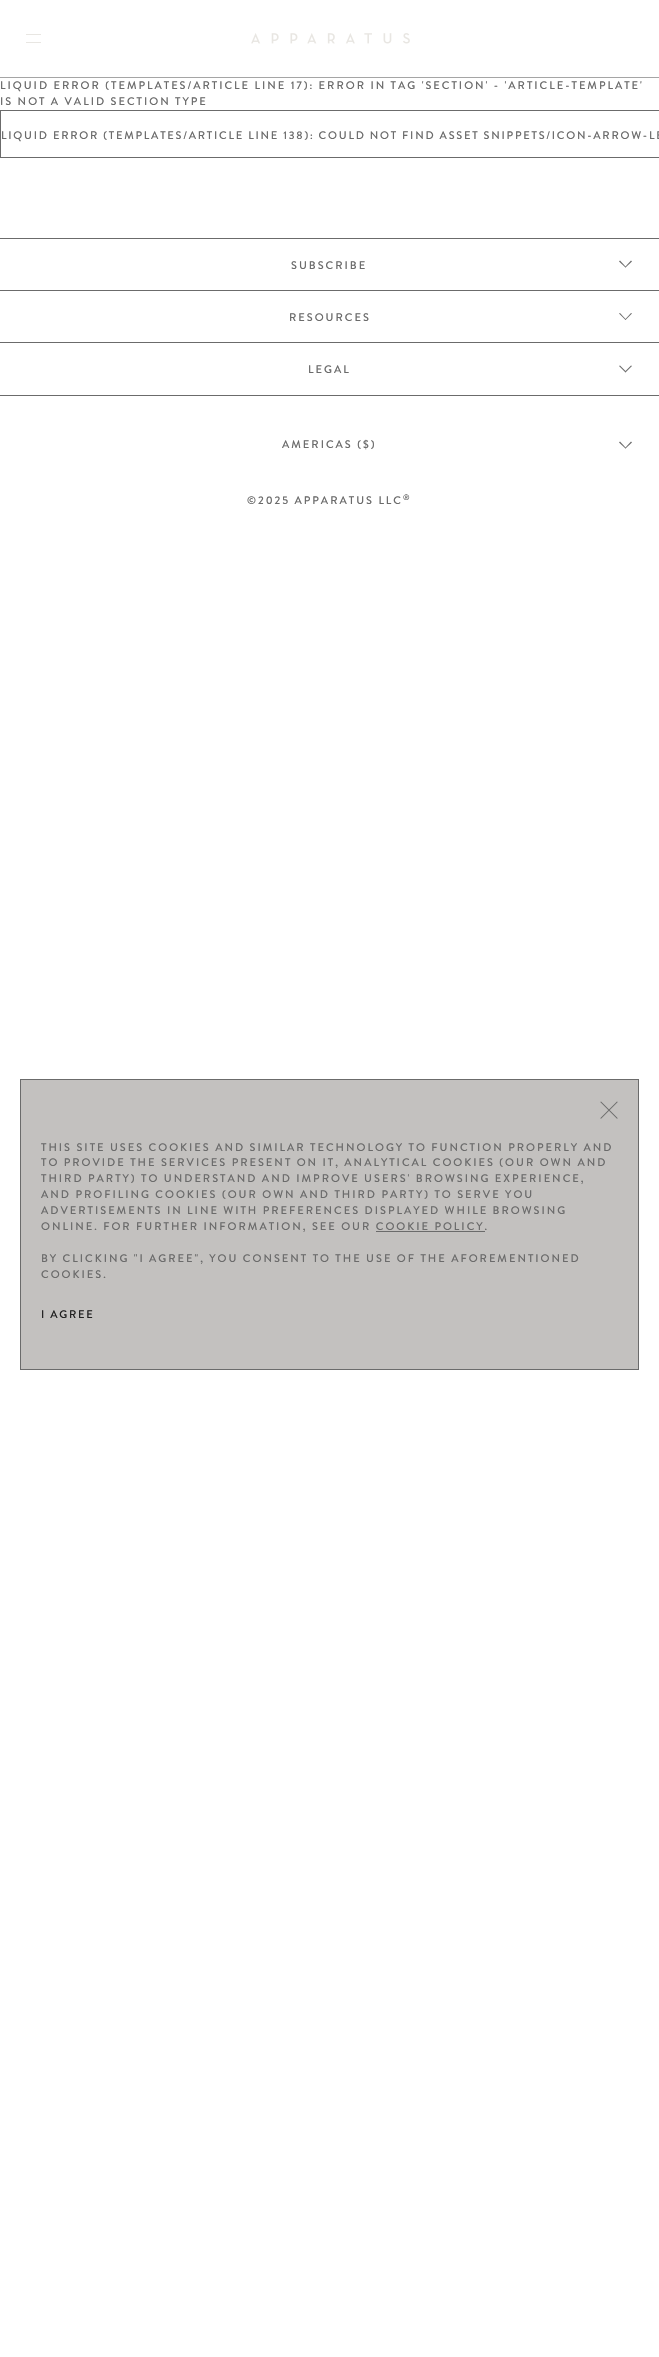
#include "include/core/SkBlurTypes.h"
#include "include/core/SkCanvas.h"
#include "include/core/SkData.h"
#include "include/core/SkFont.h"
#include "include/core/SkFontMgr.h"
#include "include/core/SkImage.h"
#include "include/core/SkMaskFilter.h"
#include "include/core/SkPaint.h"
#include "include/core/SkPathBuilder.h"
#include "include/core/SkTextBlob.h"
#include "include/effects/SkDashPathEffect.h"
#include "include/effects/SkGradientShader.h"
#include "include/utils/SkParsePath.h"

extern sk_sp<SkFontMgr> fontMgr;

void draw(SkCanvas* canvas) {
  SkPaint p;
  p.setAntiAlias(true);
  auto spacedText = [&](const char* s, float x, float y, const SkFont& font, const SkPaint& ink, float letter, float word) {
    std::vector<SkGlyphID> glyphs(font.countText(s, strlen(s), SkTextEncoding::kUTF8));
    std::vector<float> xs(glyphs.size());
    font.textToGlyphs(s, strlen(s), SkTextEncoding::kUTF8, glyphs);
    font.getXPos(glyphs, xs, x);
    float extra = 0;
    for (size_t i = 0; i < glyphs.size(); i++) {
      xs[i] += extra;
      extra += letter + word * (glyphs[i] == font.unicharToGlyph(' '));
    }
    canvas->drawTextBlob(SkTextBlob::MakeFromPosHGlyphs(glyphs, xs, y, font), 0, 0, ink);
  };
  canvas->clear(SK_ColorWHITE);
  p.setColor(SkColorSetRGB(165, 165, 165));
  canvas->drawRect(SkRect::MakeLTRB(0, 77, 659, 78), p);
  p.setColor(SkColorSetRGB(232, 230, 226));
  canvas->drawRect(SkRect::MakeLTRB(26, 34, 41, 35), p);
  canvas->drawRect(SkRect::MakeLTRB(26, 42, 41, 43), p);
  canvas->drawImageRect(SkImages::DeferredFromEncodedData(SkData::MakeFromFileName("images/1.png")), SkRect::MakeLTRB(251, 33, 410, 44), SkSamplingOptions());
  p.setStyle(SkPaint::kStroke_Style);
  p.setStrokeWidth(1);
  p.setColor(SkColorSetRGB(107, 107, 107));
  canvas->drawRect(SkRect::MakeLTRB(0.5f, 110.5f, 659.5f, 157.5f), p);
  p.setStyle(SkPaint::kFill_Style);
  canvas->drawRect(SkRect::MakeLTRB(0, 238, 659, 239), p);
  canvas->drawRect(SkRect::MakeLTRB(0, 290, 659, 291), p);
  canvas->drawPath(SkPathBuilder().moveTo(631, 260.5f).lineTo(632, 261.5f).lineTo(625.5f, 267.5f).lineTo(625, 267).close().detach(), p);
  canvas->drawPath(SkPathBuilder().moveTo(620, 260.5f).lineTo(626, 267).lineTo(625.5f, 267.5f).lineTo(619, 261.5f).close().detach(), p);
  canvas->drawRect(SkRect::MakeLTRB(0, 342, 659, 343), p);
  canvas->drawPath(SkPathBuilder().moveTo(631, 313).lineTo(632, 313.5f).lineTo(625.5f, 320).lineTo(625, 319.5f).close().detach(), p);
  canvas->drawPath(SkPathBuilder().moveTo(620, 313).lineTo(626, 319.5f).lineTo(625.5f, 320).lineTo(619, 313.5f).close().detach(), p);
  canvas->drawRect(SkRect::MakeLTRB(0, 395, 659, 396), p);
  canvas->drawPath(SkPathBuilder().moveTo(631, 365.5f).lineTo(632, 366).lineTo(625.5f, 372.5f).lineTo(625, 371.5f).close().detach(), p);
  canvas->drawPath(SkPathBuilder().moveTo(620, 365.5f).lineTo(626, 371.5f).lineTo(625.5f, 372.5f).lineTo(619, 366).close().detach(), p);
  canvas->drawPath(SkPathBuilder().moveTo(631, 441.5f).lineTo(632, 442.5f).lineTo(625.5f, 448.5f).lineTo(625, 448).close().detach(), p);
  canvas->drawPath(SkPathBuilder().moveTo(620, 441.5f).lineTo(626, 448).lineTo(625.5f, 448.5f).lineTo(619, 442.5f).close().detach(), p);
  p.setColor(SkColorSetRGB(195, 193, 191));
  canvas->drawRect(SkRect::MakeLTRB(20.5f, 1079.5f, 638.5f, 1369.5f), p);
  p.setStyle(SkPaint::kStroke_Style);
  p.setColor(SkColorSetRGB(107, 107, 107));
  canvas->drawRect(SkRect::MakeLTRB(20.5f, 1079.5f, 638.5f, 1369.5f), p);
  canvas->drawImageRect(SkImages::DeferredFromEncodedData(SkData::MakeFromFileName("images/2.png")), SkRect::MakeLTRB(600, 1101, 618, 1119), SkSamplingOptions());
  p.setStyle(SkPaint::kFill_Style);
  canvas->drawRect(SkRect::MakeLTRB(376, 1231, 485, 1232), p);
  SkFont font1(fontMgr->matchFamilyStyle("Brandon Grotesque", SkFontStyle(500, SkFontStyle::kNormal_Width, SkFontStyle::kUpright_Slant)), 11);
  font1.setSubpixel(true);
  spacedText("LIQUID ERROR (TEMPLATES/ARTICLE LINE 17): ERROR IN TAG 'SECTION' - 'ARTICLE-TEMPLATE'", 0, 89, font1, p, 2, 0);
  spacedText("IS NOT A VALID SECTION TYPE", 0, 105, font1, p, 2, 0);
  spacedText("LIQUID ERROR (TEMPLATES/ARTICLE LINE 138): COULD NOT FIND ASSET SNIPPETS/ICON-ARROW-LE", 1, 139, font1, p, 1.77f, 0);
  spacedText("SUBSCRIBE", 291, 269, font1, p, 2, 0);
  spacedText("RESOURCES", 289, 321, font1, p, 2, 0);
  spacedText("LEGAL", 308, 373, font1, p, 2, 0);
  spacedText("AMERICAS ($)", 282, 448, font1, p, 2, 0);
  spacedText("©2025 APPARATUS LLC", 247, 504, font1, p, 2, 0);
  SkFont font2(fontMgr->matchFamilyStyle("Brandon Grotesque", SkFontStyle(500, SkFontStyle::kNormal_Width, SkFontStyle::kUpright_Slant)), 8);
  font2.setSubpixel(true);
  spacedText("®", 403, 500, font2, p, 2, 0);
  spacedText("THIS SITE USES COOKIES AND SIMILAR TECHNOLOGY TO FUNCTION PROPERLY AND", 41, 1151, font1, p, 2, 0);
  spacedText("TO PROVIDE THE SERVICES PRESENT ON IT, ANALYTICAL COOKIES (OUR OWN AND", 41, 1166, font1, p, 2, 0);
  spacedText("THIRD PARTY) TO UNDERSTAND AND IMPROVE USERS' BROWSING EXPERIENCE,", 41, 1182, font1, p, 2, 0);
  spacedText("AND PROFILING COOKIES (OUR OWN AND THIRD PARTY) TO SERVE YOU", 41, 1198, font1, p, 2, 0);
  spacedText("ADVERTISEMENTS IN LINE WITH PREFERENCES DISPLAYED WHILE BROWSING", 41, 1214, font1, p, 2, 0);
  spacedText("ONLINE. FOR FURTHER INFORMATION, SEE OUR COOKIE POLICY.", 41, 1230, font1, p, 2, 0);
  spacedText("BY CLICKING \"I AGREE\", YOU CONSENT TO THE USE OF THE AFOREMENTIONED", 41, 1262, font1, p, 2, 0);
  spacedText("COOKIES.", 41, 1278, font1, p, 2, 0);
  p.setColor(SkColorSetRGB(32, 32, 32));
  spacedText("I AGREE", 41, 1318, font1, p, 1.77f, 0);
}
